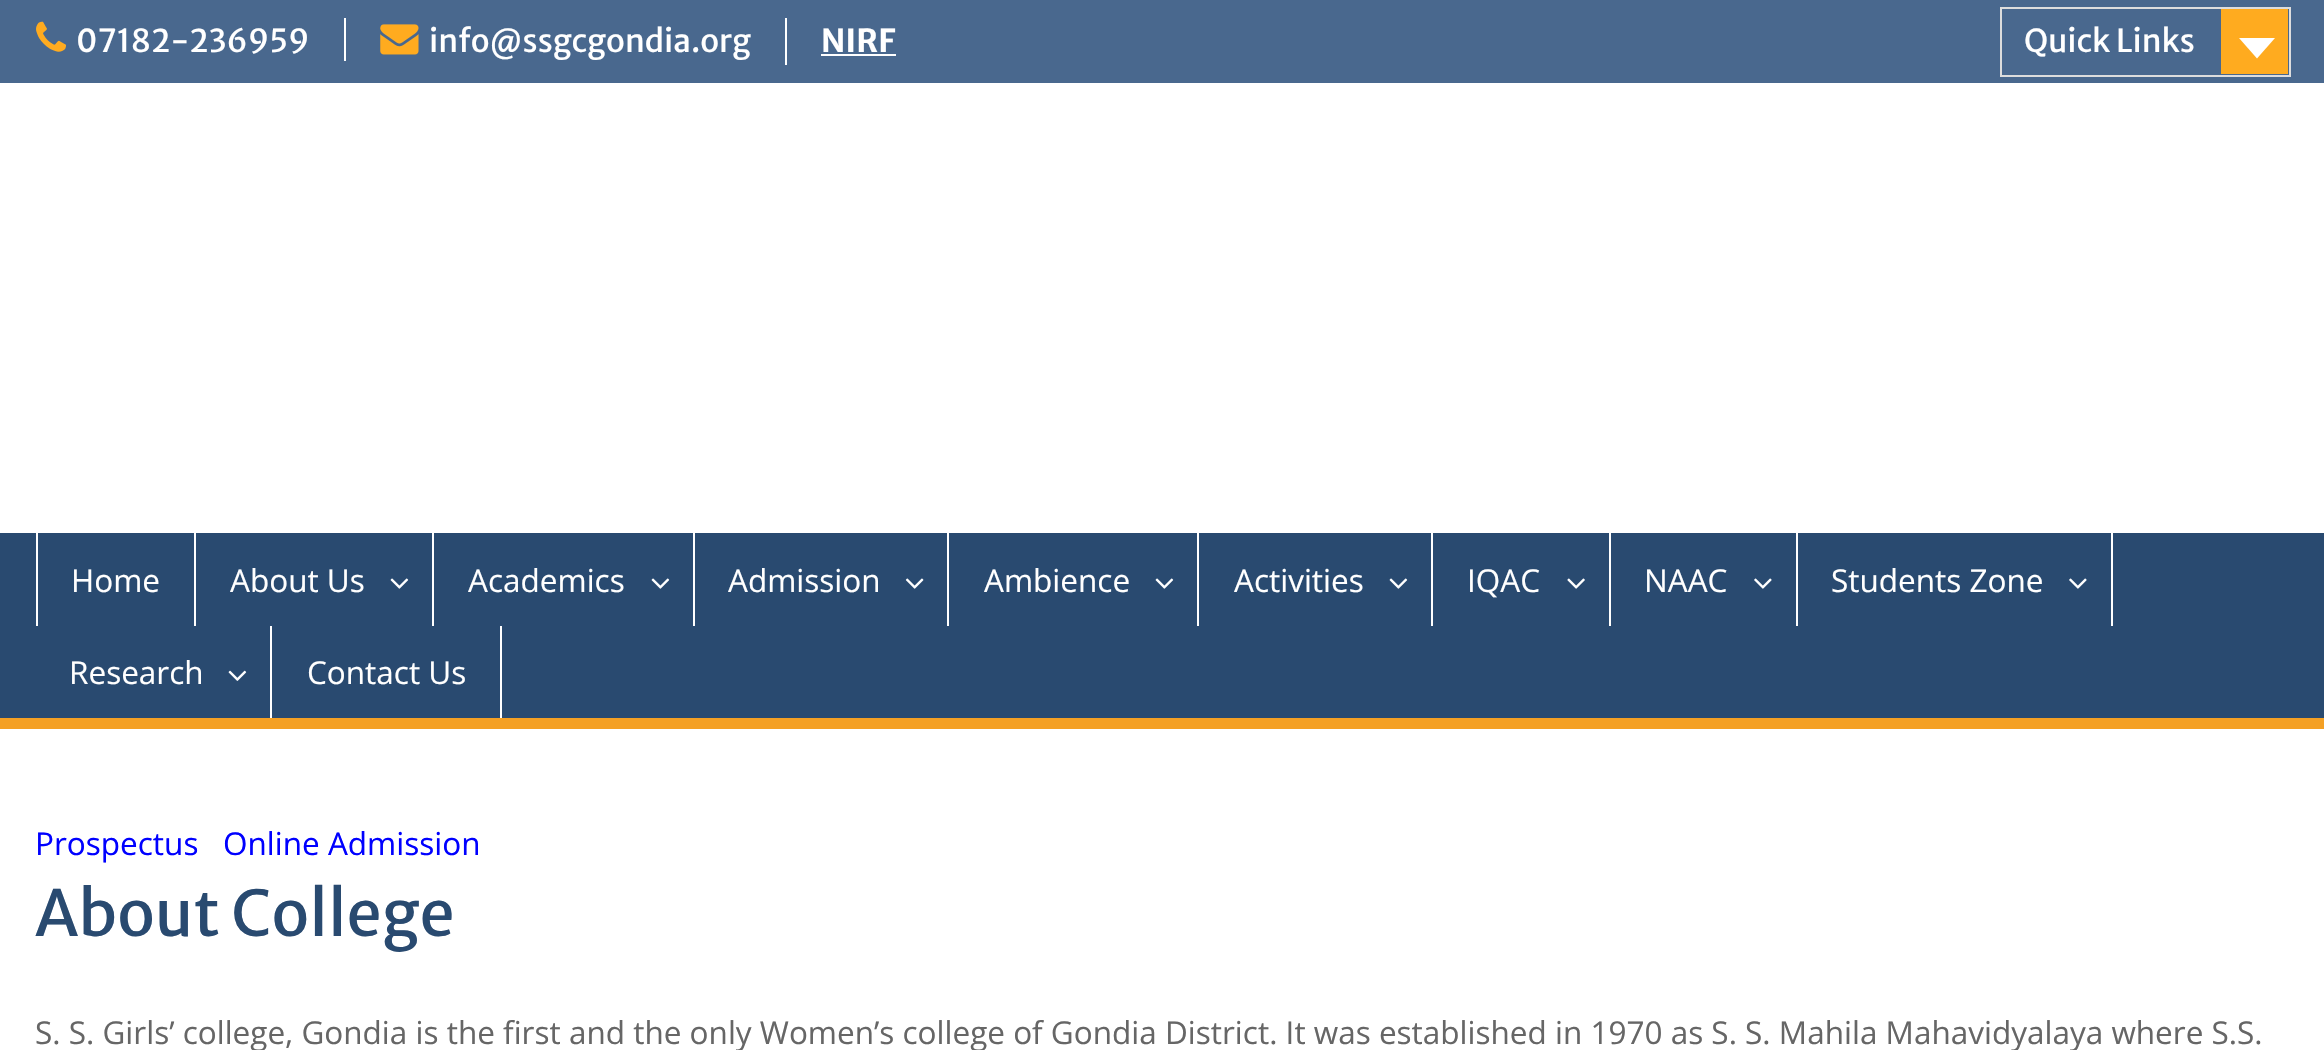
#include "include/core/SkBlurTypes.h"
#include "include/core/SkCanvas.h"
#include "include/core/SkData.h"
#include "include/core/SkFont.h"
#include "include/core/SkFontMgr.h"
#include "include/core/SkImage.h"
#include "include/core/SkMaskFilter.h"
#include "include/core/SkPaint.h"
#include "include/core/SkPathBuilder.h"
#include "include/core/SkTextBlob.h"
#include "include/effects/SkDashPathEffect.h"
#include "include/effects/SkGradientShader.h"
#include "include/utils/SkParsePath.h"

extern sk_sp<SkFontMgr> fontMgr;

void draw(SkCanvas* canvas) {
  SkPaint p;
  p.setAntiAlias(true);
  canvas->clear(SK_ColorWHITE);
  p.setColor(SkColorSetRGB(73, 104, 142));
  canvas->drawRect(SkRect::MakeLTRB(0, 0, 2324, 83), p);
  canvas->drawImageRect(SkImages::DeferredFromEncodedData(SkData::MakeFromFileName("images/1.png")), SkRect::MakeLTRB(36, 21, 66, 52), SkSamplingOptions());
  p.setColor(SK_ColorWHITE);
  canvas->drawRect(SkRect::MakeLTRB(344, 18, 346, 61), p);
  canvas->drawImageRect(SkImages::DeferredFromEncodedData(SkData::MakeFromFileName("images/2.png")), SkRect::MakeLTRB(380, 24, 419, 55), SkSamplingOptions());
  canvas->drawRect(SkRect::MakeLTRB(785, 18, 787, 65), p);
  canvas->drawRect(SkRect::MakeLTRB(821, 54, 896, 56), p);
  p.setStyle(SkPaint::kStroke_Style);
  p.setStrokeWidth(2);
  p.setColor(SkColorSetRGB(221, 221, 221));
  canvas->drawRect(SkRect::MakeLTRB(2001, 8, 2290, 76), p);
  p.setStyle(SkPaint::kFill_Style);
  p.setColor(SkColorSetRGB(255, 171, 31));
  canvas->drawRect(SkRect::MakeLTRB(2221, 9, 2288, 74), p);
  p.setColor(SK_ColorWHITE);
  canvas->drawPath(SkPathBuilder().moveTo(2239, 38).lineTo(2275, 38).lineTo(2257, 58.5f).close().detach(), p);
  p.setColor(SkColorSetRGB(41, 74, 112));
  canvas->drawRect(SkRect::MakeLTRB(0, 533, 2324, 718), p);
  p.setColor(SkColorSetRGB(244, 160, 36));
  canvas->drawRect(SkRect::MakeLTRB(0, 718, 2324, 729), p);
  p.setColor(SK_ColorWHITE);
  canvas->drawRect(SkRect::MakeLTRB(194, 533, 196, 626), p);
  canvas->drawRect(SkRect::MakeLTRB(36, 533, 38, 626), p);
  canvas->drawRect(SkRect::MakeLTRB(432, 533, 434, 626), p);
  canvas->drawImageRect(SkImages::DeferredFromEncodedData(SkData::MakeFromFileName("images/3.png")), SkRect::MakeLTRB(390, 578, 409, 589), SkSamplingOptions());
  canvas->drawRect(SkRect::MakeLTRB(693, 533, 695, 626), p);
  canvas->drawImageRect(SkImages::DeferredFromEncodedData(SkData::MakeFromFileName("images/3.png")), SkRect::MakeLTRB(651, 578, 670, 589), SkSamplingOptions());
  canvas->drawRect(SkRect::MakeLTRB(947, 533, 949, 626), p);
  canvas->drawImageRect(SkImages::DeferredFromEncodedData(SkData::MakeFromFileName("images/4.png")), SkRect::MakeLTRB(905, 578, 924, 589), SkSamplingOptions());
  canvas->drawRect(SkRect::MakeLTRB(1197, 533, 1199, 626), p);
  canvas->drawImageRect(SkImages::DeferredFromEncodedData(SkData::MakeFromFileName("images/3.png")), SkRect::MakeLTRB(1155, 578, 1174, 589), SkSamplingOptions());
  canvas->drawRect(SkRect::MakeLTRB(1431, 533, 1433, 626), p);
  canvas->drawImageRect(SkImages::DeferredFromEncodedData(SkData::MakeFromFileName("images/3.png")), SkRect::MakeLTRB(1389, 578, 1408, 589), SkSamplingOptions());
  canvas->drawRect(SkRect::MakeLTRB(1609, 533, 1611, 626), p);
  canvas->drawImageRect(SkImages::DeferredFromEncodedData(SkData::MakeFromFileName("images/5.png")), SkRect::MakeLTRB(1567, 578, 1585, 589), SkSamplingOptions());
  canvas->drawRect(SkRect::MakeLTRB(1796, 533, 1798, 626), p);
  canvas->drawImageRect(SkImages::DeferredFromEncodedData(SkData::MakeFromFileName("images/6.png")), SkRect::MakeLTRB(1754, 578, 1772, 589), SkSamplingOptions());
  canvas->drawRect(SkRect::MakeLTRB(2111, 533, 2113, 626), p);
  canvas->drawImageRect(SkImages::DeferredFromEncodedData(SkData::MakeFromFileName("images/6.png")), SkRect::MakeLTRB(2069, 578, 2087, 589), SkSamplingOptions());
  canvas->drawRect(SkRect::MakeLTRB(270, 626, 272, 718), p);
  canvas->drawImageRect(SkImages::DeferredFromEncodedData(SkData::MakeFromFileName("images/7.png")), SkRect::MakeLTRB(228, 670, 247, 681), SkSamplingOptions());
  canvas->drawRect(SkRect::MakeLTRB(500, 626, 502, 718), p);
  SkFont font1(fontMgr->matchFamilyStyle("Merriweather Sans", SkFontStyle::Normal()), 31.5f);
  font1.setSubpixel(true);
  canvas->drawString("07182-236959", 76, 52, font1, p);
  canvas->drawString("info@ssgcgondia.org", 429, 52, font1, p);
  SkFont font2(fontMgr->matchFamilyStyle("Merriweather Sans", SkFontStyle::Bold()), 31.5f);
  font2.setSubpixel(true);
  canvas->drawString("NIRF", 821, 52, font2, p);
  canvas->drawString("Quick Links", 2024, 52, font1, p);
  SkFont font3(fontMgr->matchFamilyStyle("Open Sans", SkFontStyle::Normal()), 31.5f);
  font3.setSubpixel(true);
  canvas->drawString("Home", 71, 592, font3, p);
  canvas->drawString("About Us", 230, 592, font3, p);
  canvas->drawString("Academics", 468, 592, font3, p);
  canvas->drawString("Admission", 728, 592, font3, p);
  canvas->drawString("Ambience", 984, 592, font3, p);
  canvas->drawString("Activities", 1234, 592, font3, p);
  canvas->drawString("IQAC", 1467, 592, font3, p);
  canvas->drawString("NAAC", 1644, 592, font3, p);
  canvas->drawString("Students Zone", 1831, 592, font3, p);
  canvas->drawString("Research", 69, 684, font3, p);
  canvas->drawString("Contact Us", 307, 684, font3, p);
  p.setColor(SkColorSetRGB(0, 0, 255));
  canvas->drawString("Prospectus", 35, 855, font3, p);
  canvas->drawString("Online Admission", 223, 855, font3, p);
  SkFont font4(fontMgr->matchFamilyStyle("Merriweather Sans", SkFontStyle::Normal()), 63);
  font4.setSubpixel(true);
  p.setColor(SkColorSetRGB(41, 74, 112));
  canvas->drawString("About College", 35, 936, font4, p);
  p.setColor(SkColorSetRGB(102, 102, 102));
  canvas->drawString("S. S. Girls’ college, Gondia is the first and the only Women’s college of Gondia District. It was established in 1970 as S. S. Mahila Mahavidyalaya where S.S.", 35, 1044, font3, p);
}
